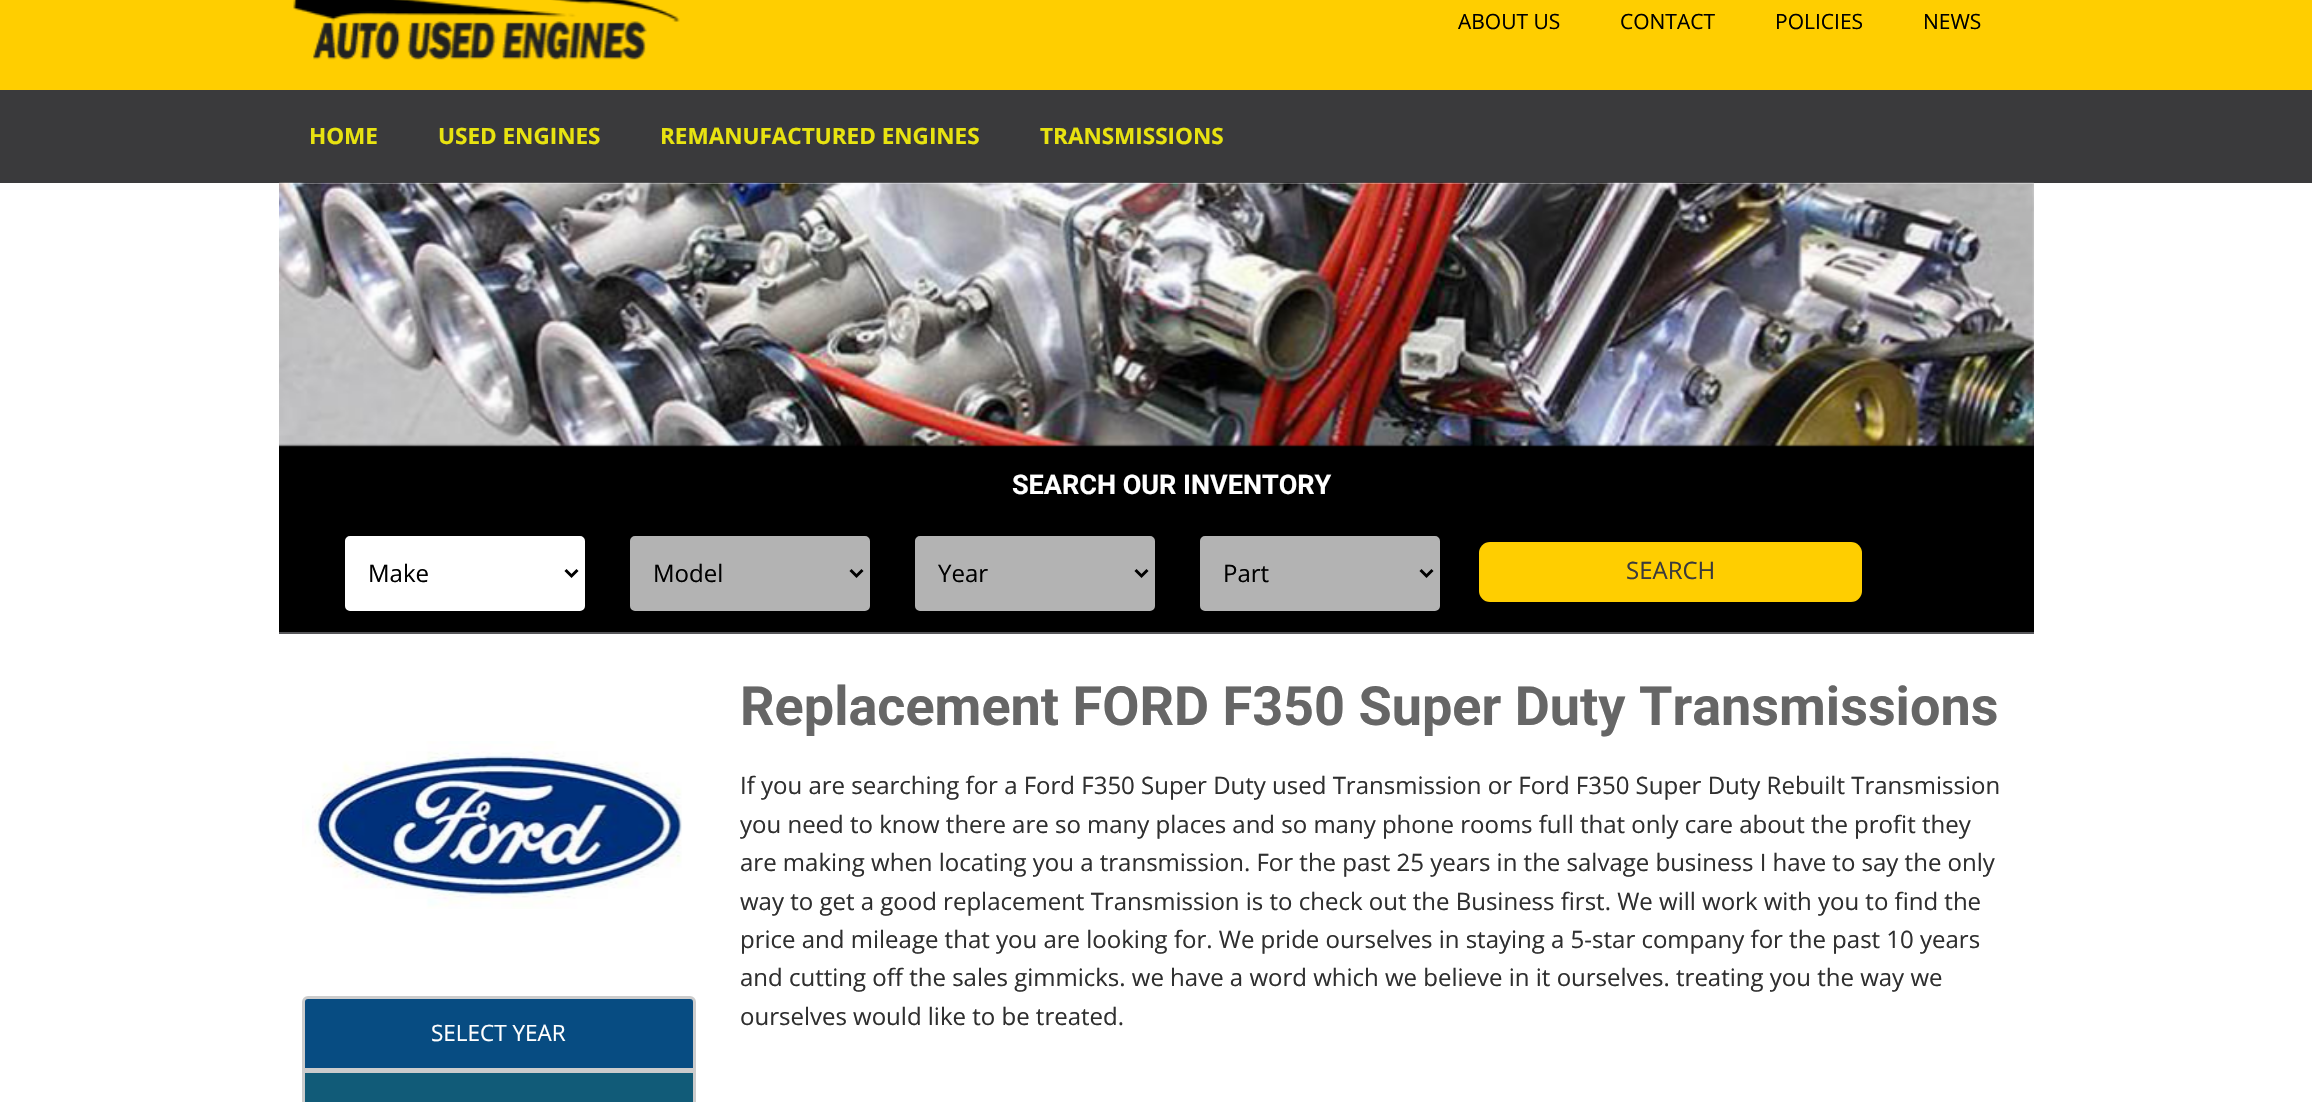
#include "include/core/SkBlurTypes.h"
#include "include/core/SkCanvas.h"
#include "include/core/SkData.h"
#include "include/core/SkFont.h"
#include "include/core/SkFontMgr.h"
#include "include/core/SkImage.h"
#include "include/core/SkMaskFilter.h"
#include "include/core/SkPaint.h"
#include "include/core/SkPathBuilder.h"
#include "include/core/SkTextBlob.h"
#include "include/effects/SkDashPathEffect.h"
#include "include/effects/SkGradientShader.h"
#include "include/utils/SkParsePath.h"

extern sk_sp<SkFontMgr> fontMgr;

void draw(SkCanvas* canvas) {
  SkPaint p;
  p.setAntiAlias(true);
  canvas->clear(SK_ColorWHITE);
  p.setColor(SkColorSetRGB(58, 58, 60));
  canvas->drawRect(SkRect::MakeLTRB(0, 90, 2312, 183), p);
  p.setColor(SkColorSetRGB(255, 206, 0));
  canvas->drawRect(SkRect::MakeLTRB(0, 0, 2312, 90), p);
  canvas->drawImageRect(SkImages::DeferredFromEncodedData(SkData::MakeFromFileName("images/1.png")), SkRect::MakeLTRB(293, 0, 680, 60), SkSamplingOptions());
  p.setColor(SK_ColorBLACK);
  canvas->drawRect(SkRect::MakeLTRB(279, 408, 2034, 632), p);
  canvas->drawImageRect(SkImages::DeferredFromEncodedData(SkData::MakeFromFileName("images/2.png")), SkRect::MakeLTRB(279, 182, 2034, 447), SkSamplingOptions());
  p.setColor(SK_ColorWHITE);
  canvas->drawRoundRect(SkRect::MakeLTRB(346, 537, 584, 610), 4, 4, p);
  p.setStyle(SkPaint::kStroke_Style);
  p.setStrokeWidth(2);
  canvas->drawRoundRect(SkRect::MakeLTRB(346, 537, 584, 610), 4, 4, p);
  p.setStrokeWidth(3);
  p.setColor(SK_ColorBLACK);
  canvas->drawPath(SkPathBuilder().moveTo(565.5f, 570).lineTo(571.5f, 576).lineTo(577.5f, 570).detach(), p);
  p.setStyle(SkPaint::kFill_Style);
  p.setColor(SkColorSetRGB(179, 179, 179));
  canvas->drawRoundRect(SkRect::MakeLTRB(631, 537, 869, 610), 4, 4, p);
  p.setStyle(SkPaint::kStroke_Style);
  p.setStrokeWidth(2);
  canvas->drawRoundRect(SkRect::MakeLTRB(631, 537, 869, 610), 4, 4, p);
  p.setStrokeWidth(3);
  p.setColor(SK_ColorBLACK);
  canvas->drawPath(SkPathBuilder().moveTo(850.5f, 570).lineTo(856.5f, 576).lineTo(862.5f, 570).detach(), p);
  p.setStyle(SkPaint::kFill_Style);
  p.setColor(SkColorSetRGB(179, 179, 179));
  canvas->drawRoundRect(SkRect::MakeLTRB(916, 537, 1154, 610), 4, 4, p);
  p.setStyle(SkPaint::kStroke_Style);
  p.setStrokeWidth(2);
  canvas->drawRoundRect(SkRect::MakeLTRB(916, 537, 1154, 610), 4, 4, p);
  p.setStrokeWidth(3);
  p.setColor(SK_ColorBLACK);
  canvas->drawPath(SkPathBuilder().moveTo(1135.5f, 570).lineTo(1141.5f, 576).lineTo(1147.5f, 570).detach(), p);
  p.setStyle(SkPaint::kFill_Style);
  p.setColor(SkColorSetRGB(179, 179, 179));
  canvas->drawRoundRect(SkRect::MakeLTRB(1201, 537, 1439, 610), 4, 4, p);
  p.setStyle(SkPaint::kStroke_Style);
  p.setStrokeWidth(2);
  canvas->drawRoundRect(SkRect::MakeLTRB(1201, 537, 1439, 610), 4, 4, p);
  p.setStrokeWidth(3);
  p.setColor(SK_ColorBLACK);
  canvas->drawPath(SkPathBuilder().moveTo(1420.5f, 570).lineTo(1426.5f, 576).lineTo(1432.5f, 570).detach(), p);
  p.setStyle(SkPaint::kFill_Style);
  p.setColor(SkColorSetRGB(255, 206, 0));
  canvas->drawRoundRect(SkRect::MakeLTRB(1479, 542, 1862, 602), 11, 11, p);
  p.setColor(SkColorSetRGB(87, 87, 90));
  canvas->drawRect(SkRect::MakeLTRB(279, 632, 2034, 634), p);
  canvas->drawImageRect(SkImages::DeferredFromEncodedData(SkData::MakeFromFileName("images/3.png")), SkRect::MakeLTRB(302, 741, 682, 909), SkSamplingOptions());
  p.setColor(SkColorSetRGB(7, 76, 130));
  canvas->drawPath(SkPathBuilder().moveTo(308, 997.5f).lineTo(690, 997.5f).cubicTo(692.5f, 997.5f, 694.5f, 999.5f, 694.5f, 1002).lineTo(694.5f, 1069.5f).lineTo(303.5f, 1069.5f).lineTo(303.5f, 1002).cubicTo(303.5f, 999.5f, 305.5f, 997.5f, 308, 997.5f).close().detach(), p);
  p.setStyle(SkPaint::kStroke_Style);
  p.setColor(SkColorSetRGB(204, 204, 204));
  canvas->drawPath(SkPathBuilder().moveTo(308, 997.5f).lineTo(690, 997.5f).cubicTo(692.5f, 997.5f, 694.5f, 999.5f, 694.5f, 1002).lineTo(694.5f, 1069.5f).lineTo(303.5f, 1069.5f).lineTo(303.5f, 1002).cubicTo(303.5f, 999.5f, 305.5f, 997.5f, 308, 997.5f).close().detach(), p);
  p.setStyle(SkPaint::kFill_Style);
  p.setColor(SkColorSetRGB(17, 91, 120));
  canvas->drawRect(SkRect::MakeLTRB(303.5f, 1071.5f, 694.5f, 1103.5f), p);
  p.setStyle(SkPaint::kStroke_Style);
  p.setColor(SkColorSetRGB(204, 204, 204));
  canvas->drawRect(SkRect::MakeLTRB(303.5f, 1071.5f, 694.5f, 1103.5f), p);
  SkFont font1(fontMgr->matchFamilyStyle("Open Sans", SkFontStyle::Normal()), 21);
  font1.setSubpixel(true);
  p.setStyle(SkPaint::kFill_Style);
  p.setColor(SK_ColorBLACK);
  canvas->drawString("ABOUT US", 1458, 29, font1, p);
  canvas->drawString("CONTACT", 1620, 29, font1, p);
  canvas->drawString("POLICIES", 1775, 29, font1, p);
  canvas->drawString("NEWS", 1923, 29, font1, p);
  SkFont font2(fontMgr->matchFamilyStyle("Open Sans", SkFontStyle::Bold()), 22.5f);
  font2.setSubpixel(true);
  p.setColor(SkColorSetRGB(232, 227, 16));
  canvas->drawString("HOME", 309, 144, font2, p);
  canvas->drawString("USED ENGINES", 438, 144, font2, p);
  canvas->drawString("REMANUFACTURED ENGINES", 660, 144, font2, p);
  canvas->drawString("TRANSMISSIONS", 1040, 144, font2, p);
  SkFont font3(fontMgr->matchFamilyStyle("Roboto", SkFontStyle::Bold()), 27);
  font3.setSubpixel(true);
  p.setColor(SK_ColorWHITE);
  canvas->drawString("SEARCH OUR INVENTORY", 1012, 494, font3, p);
  SkFont font4(fontMgr->matchFamilyStyle("Open Sans", SkFontStyle::Normal()), 24);
  font4.setSubpixel(true);
  p.setColor(SK_ColorBLACK);
  canvas->drawString("Make", 368, 582, font4, p);
  canvas->drawString("Model", 653, 582, font4, p);
  canvas->drawString("Year", 938, 582, font4, p);
  canvas->drawString("Part", 1223, 582, font4, p);
  p.setColor(SkColorSetRGB(58, 58, 60));
  canvas->drawString("SEARCH", 1626, 579, font4, p);
  SkFont font5(fontMgr->matchFamilyStyle("Roboto", SkFontStyle::Bold()), 54);
  font5.setSubpixel(true);
  p.setColor(SkColorSetRGB(102, 102, 102));
  canvas->drawString("Replacement FORD F350 Super Duty Transmissions", 740, 725, font5, p);
  p.setColor(SkColorSetRGB(47, 47, 47));
  canvas->drawString("If you are searching for a Ford F350 Super Duty used Transmission or Ford F350 Super Duty Rebuilt Transmission", 740, 794, font4, p);
  canvas->drawString("you need to know there are so many places and so many phone rooms full that only care about the profit they", 740, 833, font4, p);
  canvas->drawString("are making when locating you a transmission. For the past 25 years in the salvage business I have to say the only", 740, 871, font4, p);
  canvas->drawString("way to get a good replacement Transmission is to check out the Business first. We will work with you to find the", 740, 910, font4, p);
  canvas->drawString("price and mileage that you are looking for. We pride ourselves in staying a 5-star company for the past 10 years", 740, 948, font4, p);
  canvas->drawString("and cutting off the sales gimmicks. we have a word which we believe in it ourselves. treating you the way we", 740, 986, font4, p);
  canvas->drawString("ourselves would like to be treated.", 740, 1025, font4, p);
  SkFont font6(fontMgr->matchFamilyStyle("Open Sans", SkFontStyle::Normal()), 22.5f);
  font6.setSubpixel(true);
  p.setColor(SK_ColorWHITE);
  canvas->drawString("SELECT YEAR", 431, 1041, font6, p);
}
